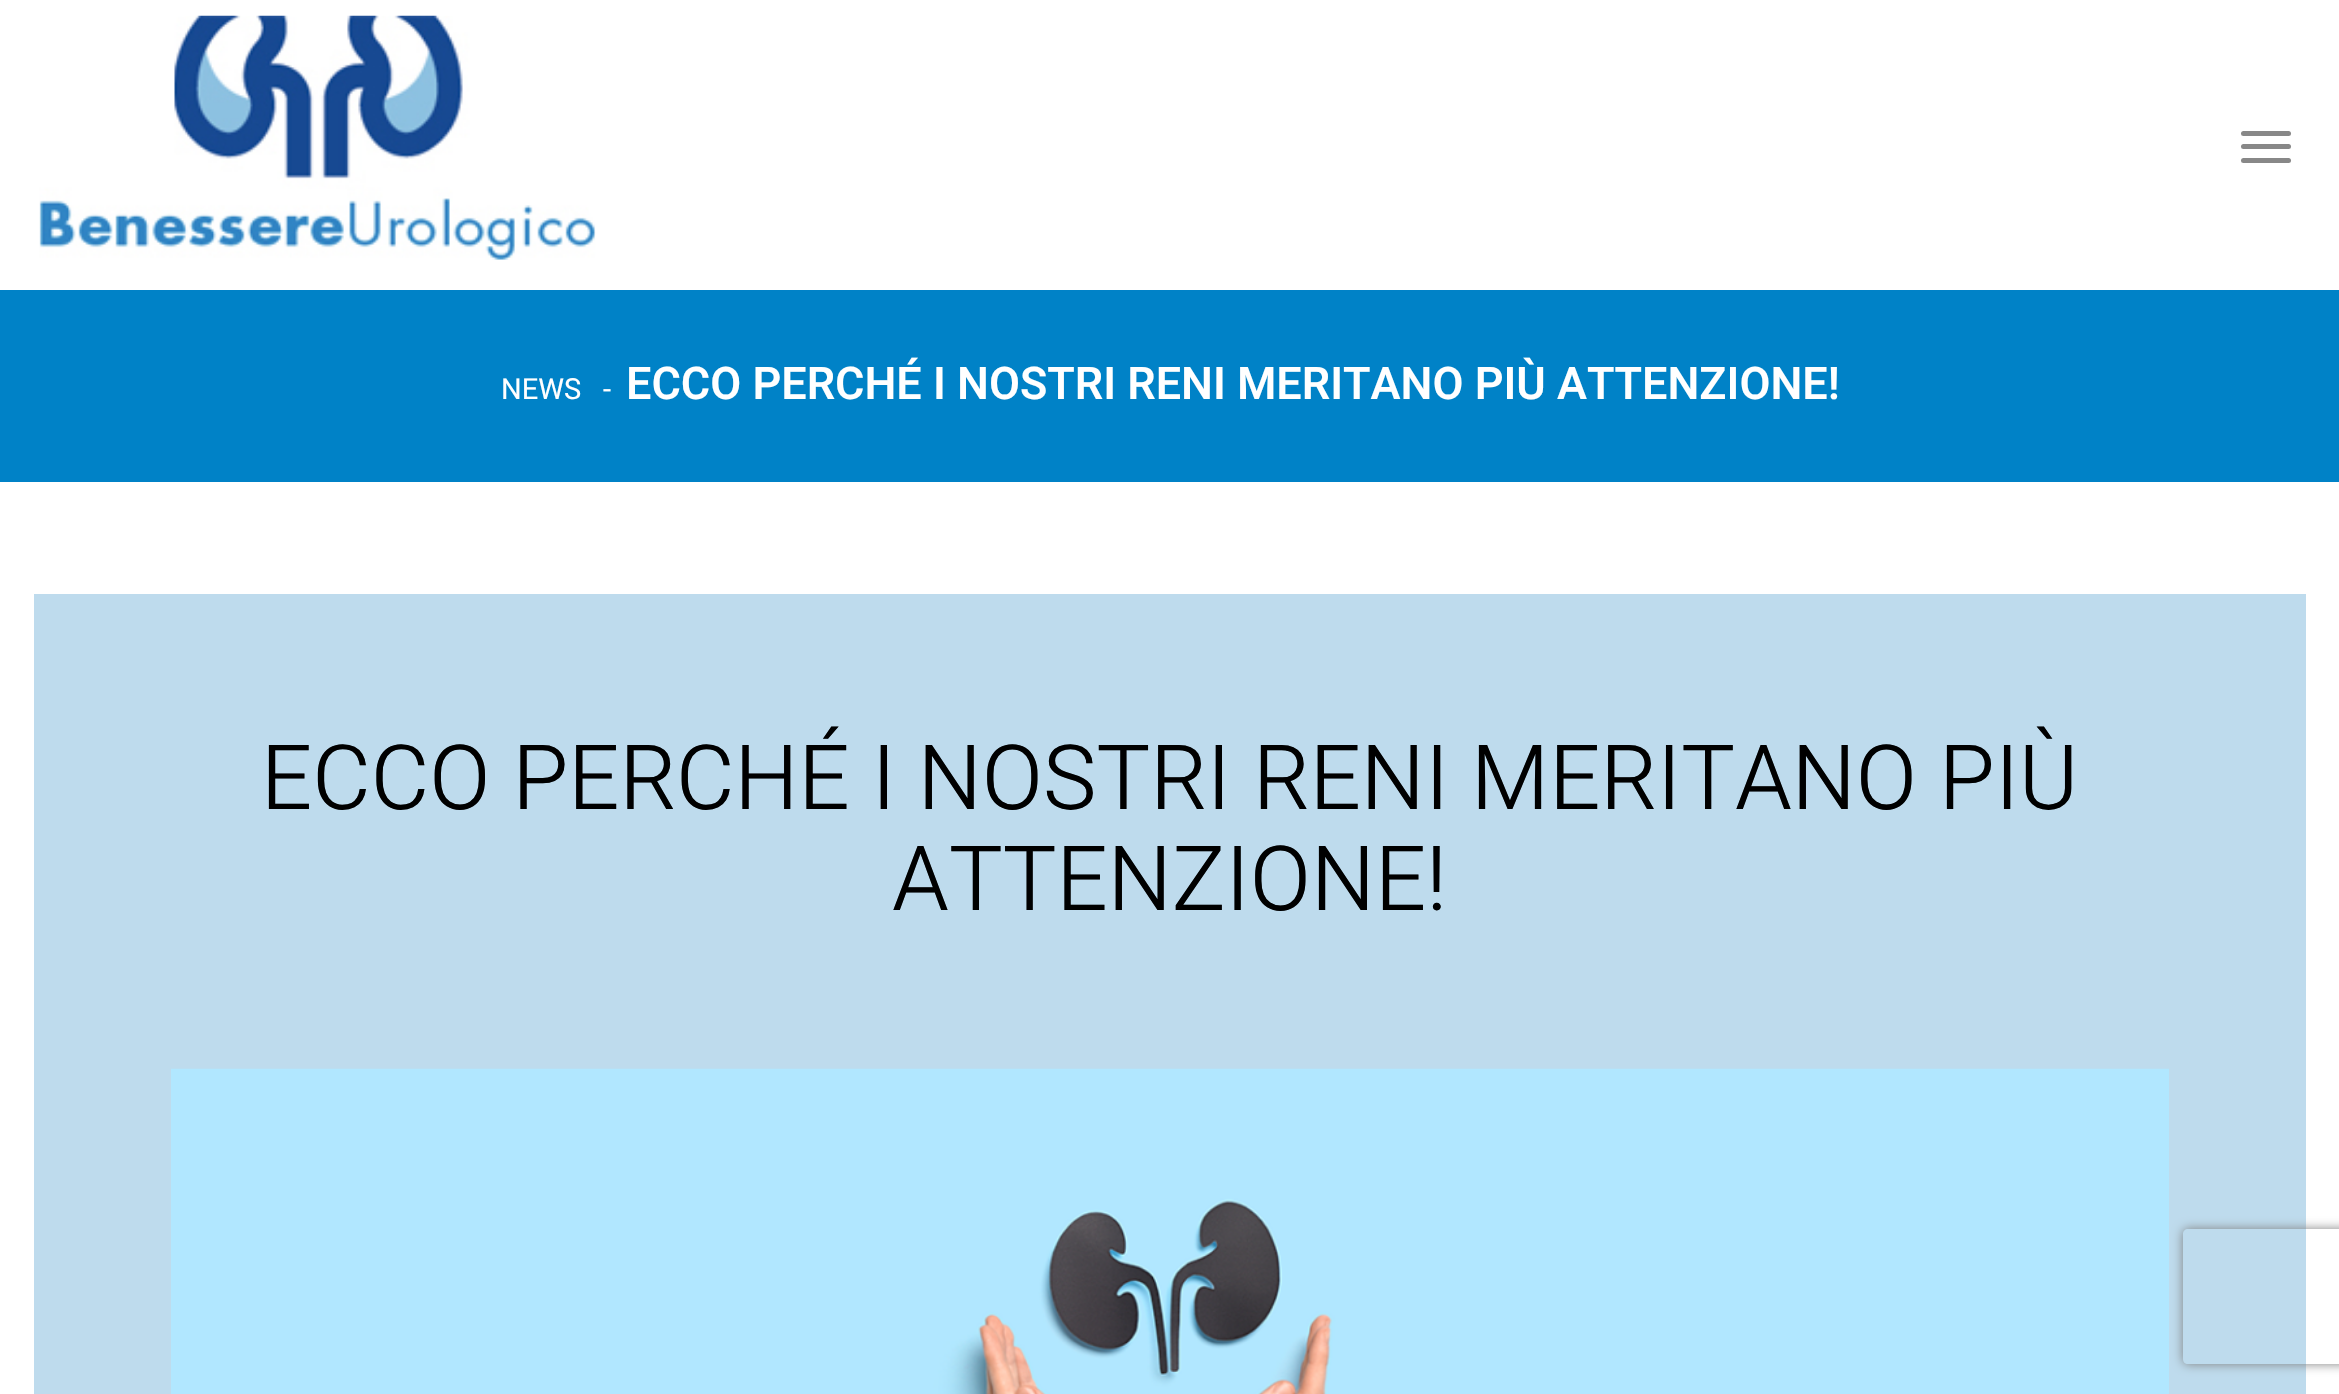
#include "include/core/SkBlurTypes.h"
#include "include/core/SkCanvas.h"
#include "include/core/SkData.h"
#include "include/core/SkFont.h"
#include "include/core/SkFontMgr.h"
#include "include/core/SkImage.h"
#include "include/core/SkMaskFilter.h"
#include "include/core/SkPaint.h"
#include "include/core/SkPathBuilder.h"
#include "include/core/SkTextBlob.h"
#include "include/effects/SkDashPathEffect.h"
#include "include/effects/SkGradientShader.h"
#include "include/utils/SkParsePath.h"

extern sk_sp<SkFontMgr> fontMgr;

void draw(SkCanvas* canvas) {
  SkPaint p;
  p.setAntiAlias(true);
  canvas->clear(SK_ColorWHITE);
  canvas->drawImageRect(SkImages::DeferredFromEncodedData(SkData::MakeFromFileName("images/1.png")), SkRect::MakeLTRB(39, 15, 596, 260), SkSamplingOptions());
  p.setColor(SkColorSetRGB(136, 136, 136));
  canvas->drawRoundRect(SkRect::MakeLTRB(2241, 131, 2291, 136), 2.5f, 2.5f, p);
  canvas->drawRoundRect(SkRect::MakeLTRB(2241, 144, 2291, 149), 2.5f, 2.5f, p);
  canvas->drawRoundRect(SkRect::MakeLTRB(2241, 158, 2291, 163), 2.5f, 2.5f, p);
  p.setColor(SkColorSetRGB(0, 130, 199));
  canvas->drawRect(SkRect::MakeLTRB(0, 290, 2339, 482), p);
  p.setColor(SkColorSetRGB(190, 219, 237));
  canvas->drawRect(SkRect::MakeLTRB(34, 594, 2306, 1394), p);
  canvas->drawImageRect(SkImages::DeferredFromEncodedData(SkData::MakeFromFileName("images/2.png")), SkRect::MakeLTRB(171, 1068, 2169, 1394), SkSamplingOptions());
  canvas->save();
  canvas->clipPath(SkPathBuilder(SkPathFillType::kEvenOdd).moveTo(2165, 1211).lineTo(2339, 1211).lineTo(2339, 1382).lineTo(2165, 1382).close().moveTo(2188, 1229).lineTo(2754, 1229).cubicTo(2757, 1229, 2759, 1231, 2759, 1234).lineTo(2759, 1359).cubicTo(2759, 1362, 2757, 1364, 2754, 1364).lineTo(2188, 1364).cubicTo(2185, 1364, 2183, 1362, 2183, 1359).lineTo(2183, 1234).cubicTo(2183, 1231, 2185, 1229, 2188, 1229).close().detach(), true);
  p.setColor(SkColorSetRGB(128, 128, 128));
  p.setMaskFilter(SkMaskFilter::MakeBlur(kNormal_SkBlurStyle, 5.5f));
  canvas->drawRoundRect(SkRect::MakeLTRB(2183, 1229, 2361, 1364), 5, 5, p);
  p.setMaskFilter(nullptr);
  canvas->restore();
  SkFont font1(fontMgr->matchFamilyStyle("Heebo", SkFontStyle::Normal()), 29);
  font1.setSubpixel(true);
  p.setColor(SK_ColorWHITE);
  canvas->drawString("NEWS", 501, 399, font1, p);
  canvas->drawString("-", 603, 399, font1, p);
  SkFont font2(fontMgr->matchFamilyStyle("Heebo", SkFontStyle(600, SkFontStyle::kNormal_Width, SkFontStyle::kUpright_Slant)), 45);
  font2.setSubpixel(true);
  canvas->drawString("ECCO PERCHÉ I NOSTRI RENI MERITANO PIÙ ATTENZIONE!", 626, 399, font2, p);
  SkFont font3(fontMgr->matchFamilyStyle("Heebo", SkFontStyle(300, SkFontStyle::kNormal_Width, SkFontStyle::kUpright_Slant)), 90);
  font3.setSubpixel(true);
  p.setColor(SK_ColorBLACK);
  canvas->drawString("ECCO PERCHÉ I NOSTRI RENI MERITANO PIÙ", 261, 809, font3, p);
  canvas->drawString("ATTENZIONE!", 892, 910, font3, p);
}
